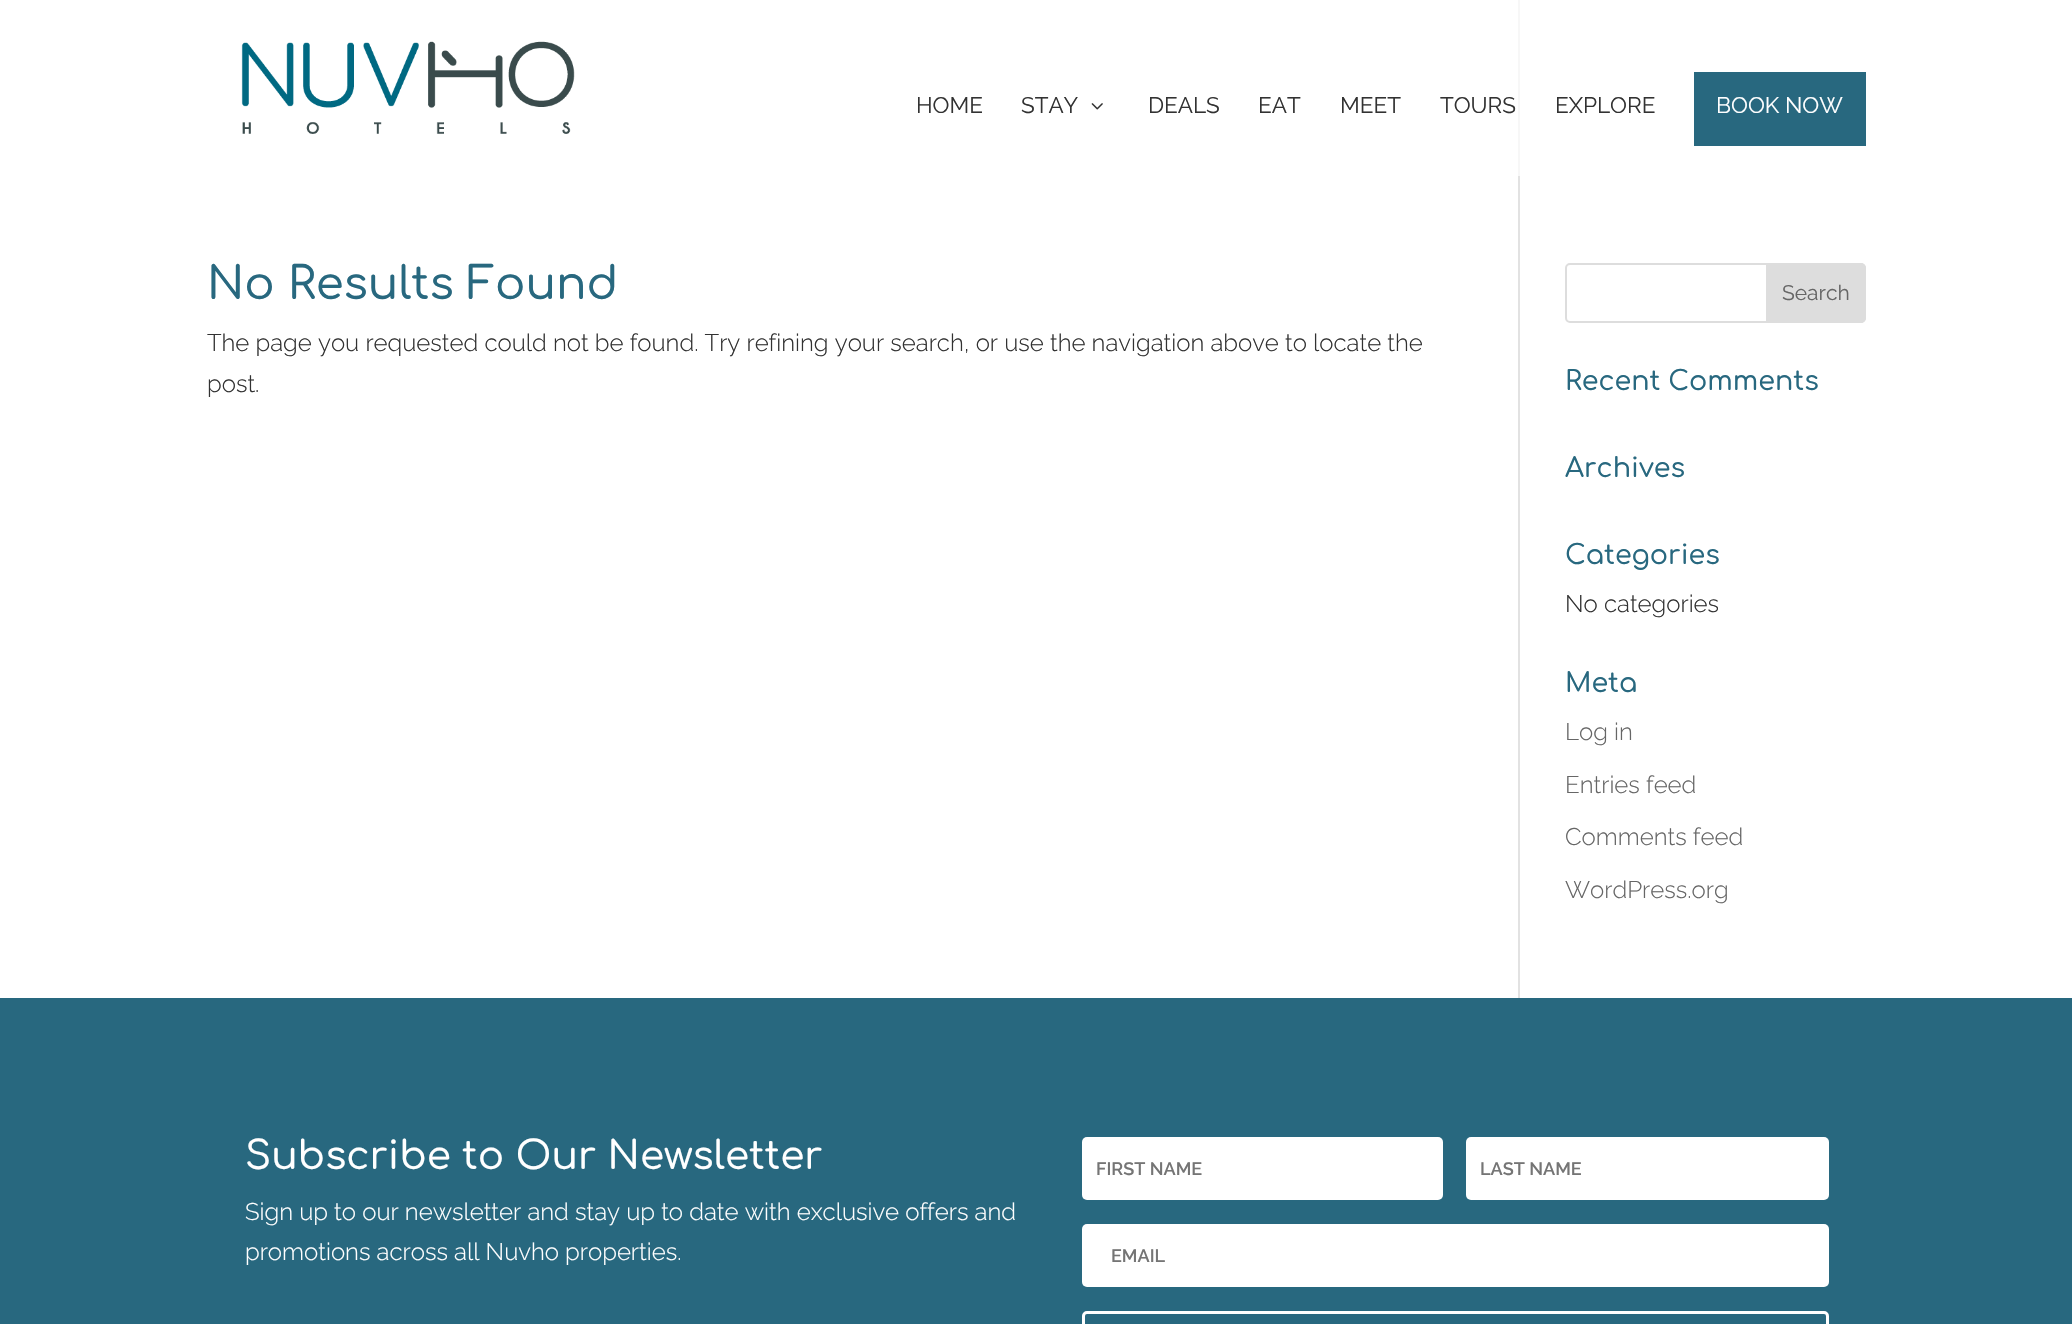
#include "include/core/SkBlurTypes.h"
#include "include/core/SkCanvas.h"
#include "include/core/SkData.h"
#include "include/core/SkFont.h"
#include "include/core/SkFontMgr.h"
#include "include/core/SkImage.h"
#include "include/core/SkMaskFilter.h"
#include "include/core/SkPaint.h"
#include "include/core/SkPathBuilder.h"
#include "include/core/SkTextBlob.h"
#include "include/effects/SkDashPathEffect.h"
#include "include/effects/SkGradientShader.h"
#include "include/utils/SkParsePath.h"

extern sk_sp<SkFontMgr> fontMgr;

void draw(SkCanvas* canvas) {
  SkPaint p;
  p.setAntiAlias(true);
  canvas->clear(SK_ColorWHITE);
  canvas->drawImageRect(SkImages::DeferredFromEncodedData(SkData::MakeFromFileName("images/1.png")), SkRect::MakeLTRB(241, 41, 575, 134), SkSamplingOptions());
  canvas->drawImageRect(SkImages::DeferredFromEncodedData(SkData::MakeFromFileName("images/2.png")), SkRect::MakeLTRB(1091, 103, 1103, 110), SkSamplingOptions());
  p.setColor(SkColorSetRGB(40, 104, 127));
  canvas->drawRect(SkRect::MakeLTRB(1694, 72, 1866, 146), p);
  p.setColor(SkColorSetRGB(226, 226, 226));
  canvas->drawRect(SkRect::MakeLTRB(1518, 176, 1520, 998), p);
  p.setColor(SkColorSetRGB(247, 247, 247));
  canvas->drawRect(SkRect::MakeLTRB(1518, 0, 1520, 176), p);
  p.setStyle(SkPaint::kStroke_Style);
  p.setStrokeWidth(2);
  p.setColor(SkColorSetRGB(221, 221, 221));
  canvas->drawRoundRect(SkRect::MakeLTRB(1566, 264, 1865, 322), 4, 4, p);
  p.setStyle(SkPaint::kFill_Style);
  canvas->drawPath(SkPathBuilder().moveTo(1767, 264).lineTo(1861, 264).cubicTo(1863, 264, 1865, 266, 1865, 268).lineTo(1865, 318).cubicTo(1865, 320, 1863, 322, 1861, 322).lineTo(1767, 322).close().detach(), p);
  p.setStyle(SkPaint::kStroke_Style);
  canvas->drawPath(SkPathBuilder().moveTo(1767, 264).lineTo(1861, 264).cubicTo(1863, 264, 1865, 266, 1865, 268).lineTo(1865, 318).cubicTo(1865, 320, 1863, 322, 1861, 322).lineTo(1767, 322).close().detach(), p);
  p.setStyle(SkPaint::kFill_Style);
  p.setColor(SkColorSetRGB(40, 104, 127));
  canvas->drawRect(SkRect::MakeLTRB(0, 998, 2072, 1324), p);
  p.setColor(SK_ColorWHITE);
  canvas->drawRoundRect(SkRect::MakeLTRB(1082, 1137, 1443, 1200), 5, 5, p);
  canvas->drawRoundRect(SkRect::MakeLTRB(1466, 1137, 1829, 1200), 5, 5, p);
  canvas->drawRoundRect(SkRect::MakeLTRB(1082, 1224, 1829, 1287), 5, 5, p);
  p.setStyle(SkPaint::kStroke_Style);
  p.setStrokeWidth(3);
  canvas->drawRoundRect(SkRect::MakeLTRB(1083.5f, 1312.5f, 1827.5f, 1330.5f), 3.5f, 3.5f, p);
  SkFont font1(fontMgr->matchFamilyStyle("Raleway", SkFontStyle::Normal()), 22.5f);
  font1.setSubpixel(true);
  p.setStyle(SkPaint::kFill_Style);
  p.setColor(SkColorSetRGB(50, 50, 50));
  canvas->drawString("HOME", 916, 113, font1, p);
  canvas->drawString("STAY", 1021, 113, font1, p);
  canvas->drawString("DEALS", 1148, 113, font1, p);
  canvas->drawString("EAT", 1258, 113, font1, p);
  canvas->drawString("MEET", 1340, 113, font1, p);
  canvas->drawString("TOURS", 1440, 113, font1, p);
  canvas->drawString("EXPLORE", 1555, 113, font1, p);
  p.setColor(SK_ColorWHITE);
  canvas->drawString("BOOK NOW", 1716, 113, font1, p);
  SkFont font2(fontMgr->matchFamilyStyle("Comfortaa", SkFontStyle(500, SkFontStyle::kNormal_Width, SkFontStyle::kUpright_Slant)), 45);
  font2.setSubpixel(true);
  p.setColor(SkColorSetRGB(40, 104, 127));
  canvas->drawString("No Results Found", 207, 299, font2, p);
  SkFont font3(fontMgr->matchFamilyStyle("Raleway", SkFontStyle(300, SkFontStyle::kNormal_Width, SkFontStyle::kUpright_Slant)), 24);
  font3.setSubpixel(true);
  p.setColor(SkColorSetRGB(50, 50, 50));
  canvas->drawString("The page you requested could not be found. Try refining your search, or use the navigation above to locate the", 207, 351, font3, p);
  canvas->drawString("post.", 207, 392, font3, p);
  SkFont font4(fontMgr->matchFamilyStyle("Raleway", SkFontStyle::Normal()), 21);
  font4.setSubpixel(true);
  p.setColor(SkColorSetRGB(102, 102, 102));
  canvas->drawString("Search", 1782, 300, font4, p);
  SkFont font5(fontMgr->matchFamilyStyle("Comfortaa", SkFontStyle(500, SkFontStyle::kNormal_Width, SkFontStyle::kUpright_Slant)), 27);
  font5.setSubpixel(true);
  p.setColor(SkColorSetRGB(40, 104, 127));
  canvas->drawString("Recent Comments", 1565, 390, font5, p);
  canvas->drawString("Archives", 1565, 477, font5, p);
  canvas->drawString("Categories", 1565, 564, font5, p);
  p.setColor(SkColorSetRGB(50, 50, 50));
  canvas->drawString("No categories", 1565, 612, font3, p);
  p.setColor(SkColorSetRGB(40, 104, 127));
  canvas->drawString("Meta", 1565, 692, font5, p);
  p.setColor(SkColorSetRGB(102, 102, 102));
  canvas->drawString("Log in", 1565, 740, font3, p);
  canvas->drawString("Entries feed", 1565, 793, font3, p);
  canvas->drawString("Comments feed", 1565, 845, font3, p);
  canvas->drawString("WordPress.org", 1565, 898, font3, p);
  SkFont font6(fontMgr->matchFamilyStyle("Comfortaa", SkFontStyle(500, SkFontStyle::kNormal_Width, SkFontStyle::kUpright_Slant)), 39);
  font6.setSubpixel(true);
  p.setColor(SK_ColorWHITE);
  canvas->drawString("Subscribe to Our Newsletter", 245, 1169, font6, p);
  canvas->drawString("Sign up to our newsletter and stay up to date with exclusive offers and", 245, 1220, font3, p);
  canvas->drawString("promotions across all Nuvho properties.", 245, 1260, font3, p);
  SkFont font7(fontMgr->matchFamilyStyle("Raleway", SkFontStyle(600, SkFontStyle::kNormal_Width, SkFontStyle::kUpright_Slant)), 18);
  font7.setSubpixel(true);
  p.setColor(SkColorSetRGB(117, 117, 117));
  canvas->drawString("FIRST NAME", 1096, 1175, font7, p);
  canvas->drawString("LAST NAME", 1480, 1175, font7, p);
  canvas->drawString("EMAIL", 1111, 1262, font7, p);
}
